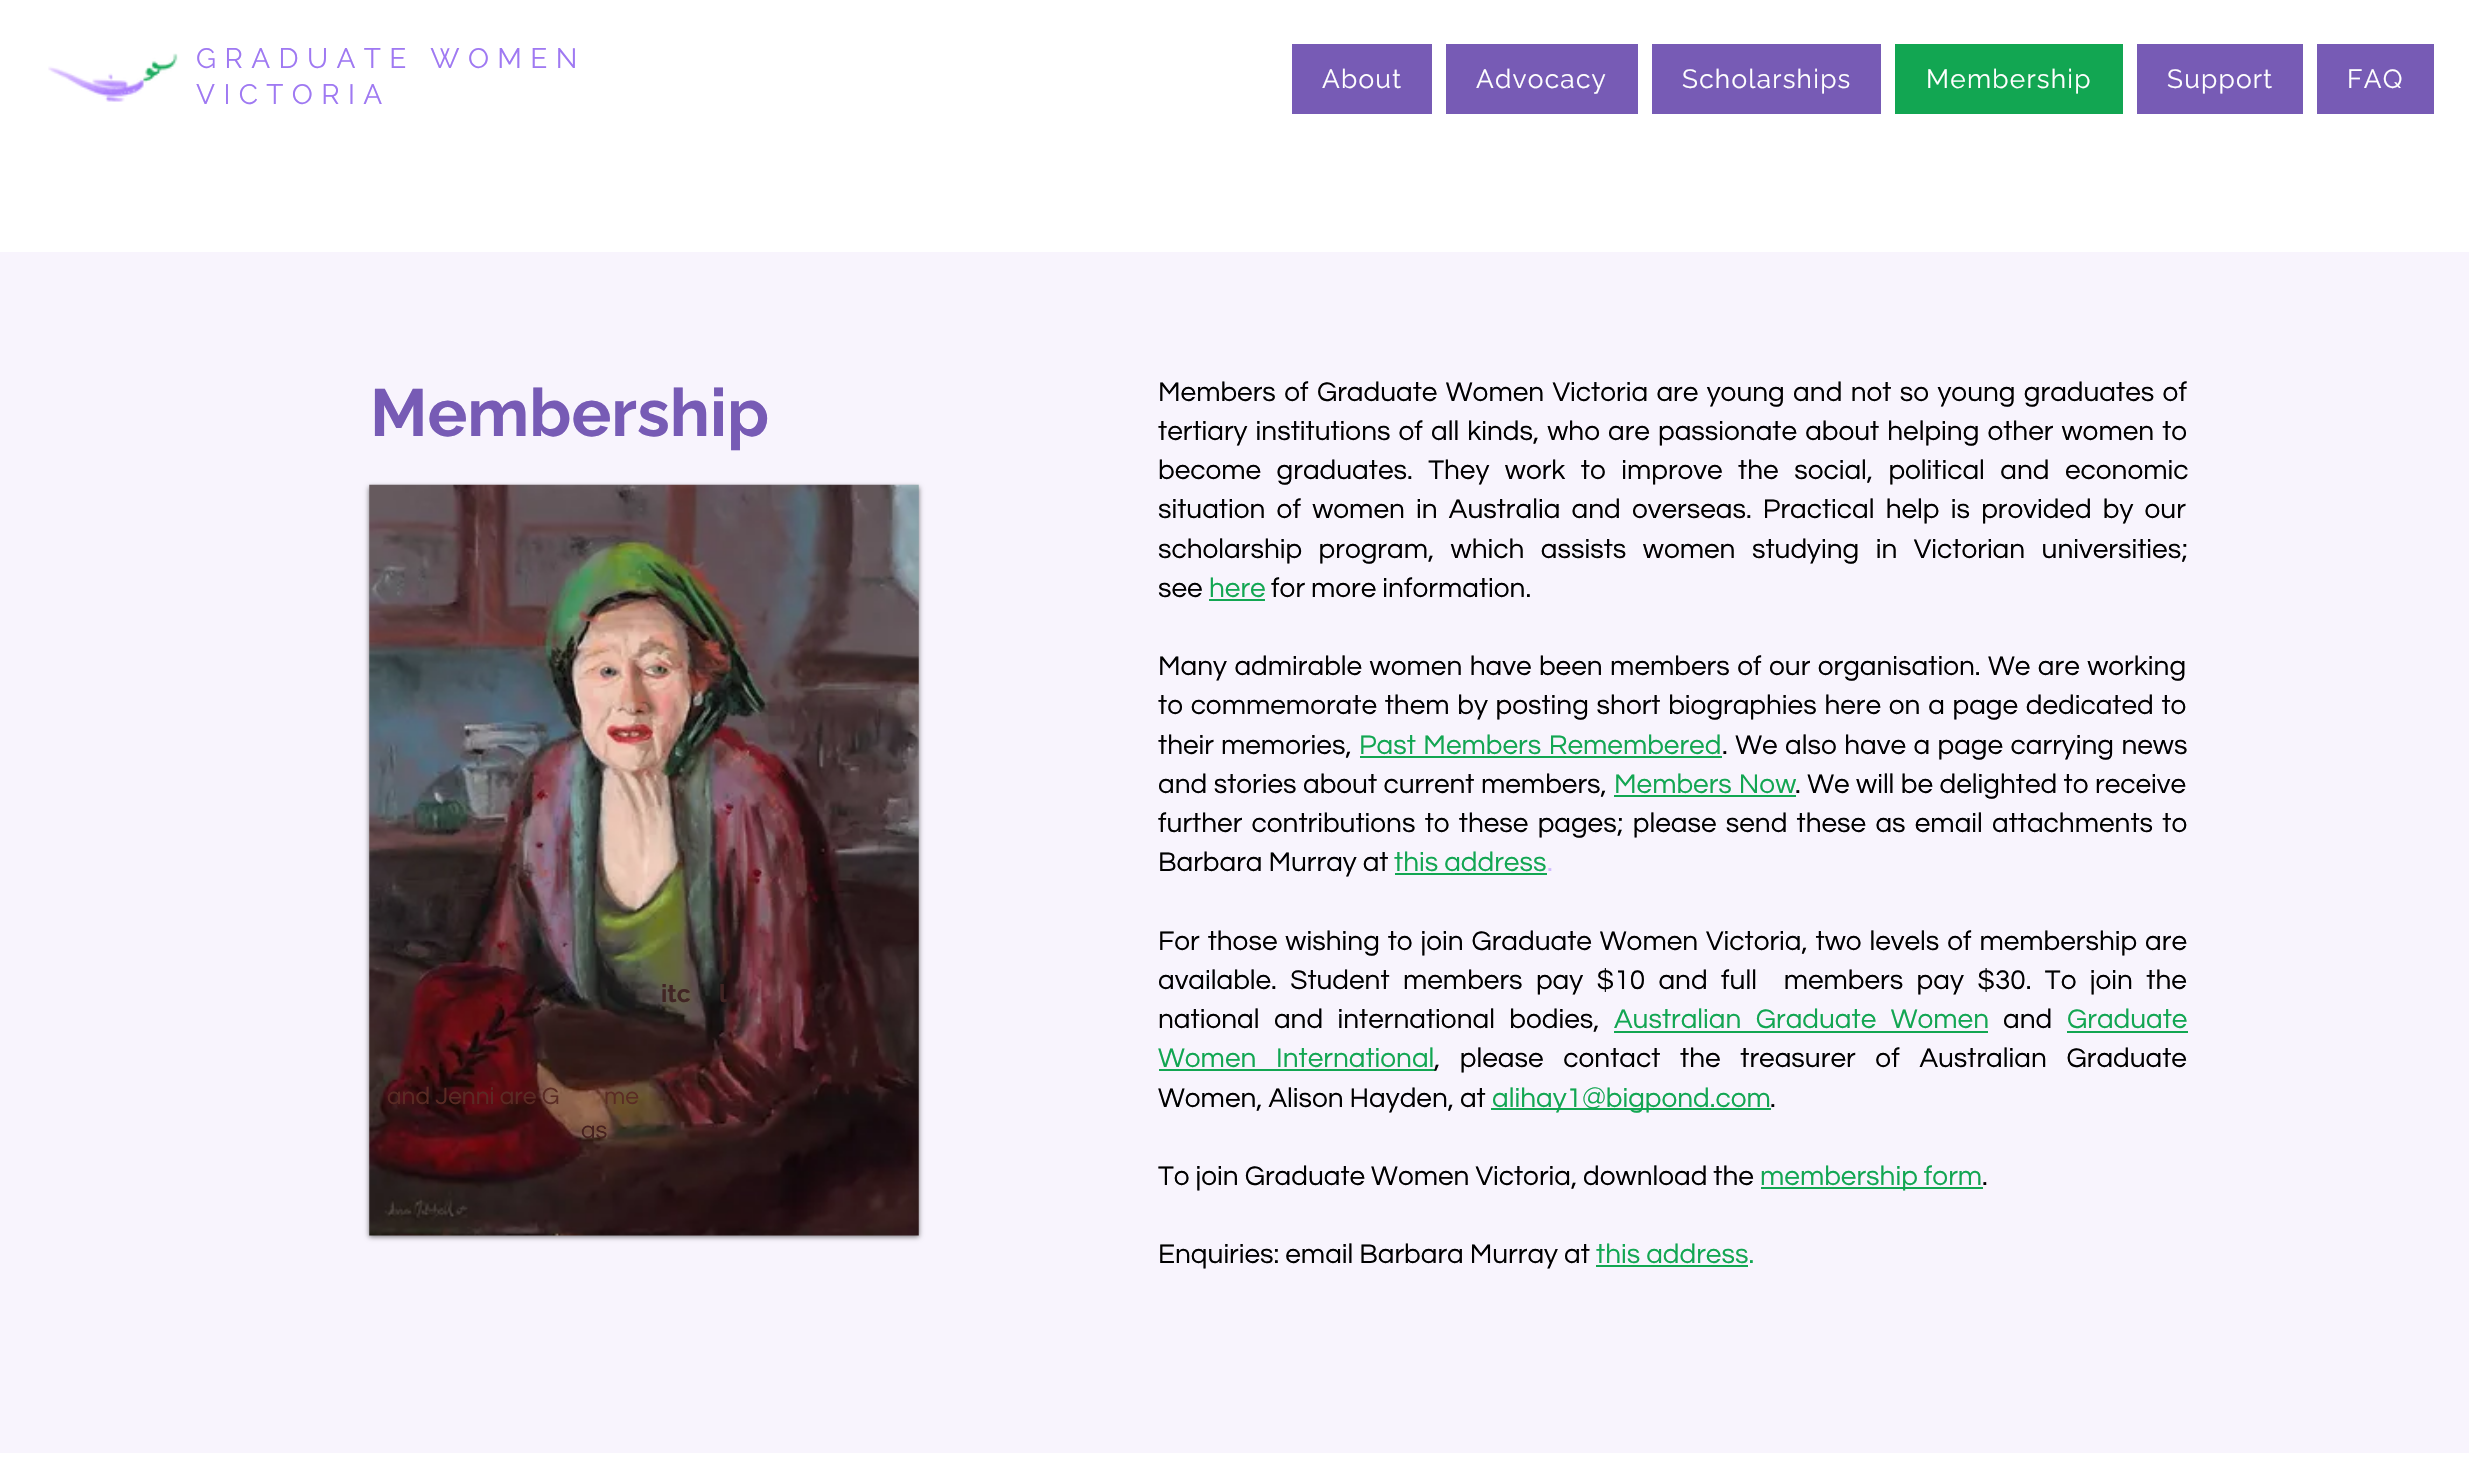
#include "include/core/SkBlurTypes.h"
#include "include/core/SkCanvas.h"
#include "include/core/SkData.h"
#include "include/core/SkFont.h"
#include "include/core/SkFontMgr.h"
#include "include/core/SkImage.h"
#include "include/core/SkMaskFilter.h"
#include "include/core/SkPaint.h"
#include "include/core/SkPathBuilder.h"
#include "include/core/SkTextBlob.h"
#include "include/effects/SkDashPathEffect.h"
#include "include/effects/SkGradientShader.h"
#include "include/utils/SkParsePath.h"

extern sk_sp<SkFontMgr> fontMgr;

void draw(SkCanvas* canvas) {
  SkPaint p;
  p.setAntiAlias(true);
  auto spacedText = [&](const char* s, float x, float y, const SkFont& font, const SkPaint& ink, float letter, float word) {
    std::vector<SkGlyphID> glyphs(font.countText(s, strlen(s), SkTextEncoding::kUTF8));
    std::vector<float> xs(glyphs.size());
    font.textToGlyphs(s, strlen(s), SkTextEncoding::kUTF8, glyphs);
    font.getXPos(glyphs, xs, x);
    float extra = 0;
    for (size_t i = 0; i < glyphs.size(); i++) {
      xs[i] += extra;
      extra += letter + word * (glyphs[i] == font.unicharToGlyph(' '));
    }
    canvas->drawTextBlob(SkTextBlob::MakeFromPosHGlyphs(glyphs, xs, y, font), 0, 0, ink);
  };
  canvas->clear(SK_ColorWHITE);
  canvas->drawImageRect(SkImages::DeferredFromEncodedData(SkData::MakeFromFileName("images/1.png")), SkRect::MakeLTRB(48, 53, 178, 102), SkSamplingOptions());
  p.setColor(SkColorSetRGB(119, 91, 181));
  canvas->drawRect(SkRect::MakeLTRB(1292, 44, 1432, 114), p);
  canvas->drawRect(SkRect::MakeLTRB(1446, 44, 1638, 114), p);
  canvas->drawRect(SkRect::MakeLTRB(1652, 44, 1881, 114), p);
  p.setColor(SkColorSetRGB(18, 166, 82));
  canvas->drawRect(SkRect::MakeLTRB(1895, 44, 2123, 114), p);
  p.setColor(SkColorSetRGB(119, 91, 181));
  canvas->drawRect(SkRect::MakeLTRB(2137, 44, 2303, 114), p);
  canvas->drawRect(SkRect::MakeLTRB(2317, 44, 2434, 114), p);
  p.setColor(SkColorSetRGB(248, 244, 253));
  canvas->drawRect(SkRect::MakeLTRB(0, 252, 2469, 1453), p);
  p.setColor(SkColorSetARGB(128, 0, 0, 0));
  p.setMaskFilter(SkMaskFilter::MakeBlur(kNormal_SkBlurStyle, 2.5f));
  canvas->drawRect(SkRect::MakeLTRB(369, 487, 919, 1237), p);
  p.setMaskFilter(nullptr);
  canvas->drawImageRect(SkImages::DeferredFromEncodedData(SkData::MakeFromFileName("images/2.png")), SkRect::MakeLTRB(369, 484, 919, 1236), SkSamplingOptions());
  p.setColor(SkColorSetRGB(18, 166, 82));
  canvas->drawRect(SkRect::MakeLTRB(1209, 599, 1265, 601), p);
  canvas->drawRect(SkRect::MakeLTRB(1360, 756, 1722, 758), p);
  canvas->drawRect(SkRect::MakeLTRB(1614, 795, 1796, 797), p);
  canvas->drawRect(SkRect::MakeLTRB(1395, 873, 1547, 875), p);
  canvas->drawRect(SkRect::MakeLTRB(1614, 1031, 1988, 1033), p);
  canvas->drawRect(SkRect::MakeLTRB(2067, 1031, 2188, 1033), p);
  canvas->drawRect(SkRect::MakeLTRB(1159, 1069, 1435, 1071), p);
  canvas->drawRect(SkRect::MakeLTRB(1491, 1108, 1771, 1110), p);
  canvas->drawRect(SkRect::MakeLTRB(1761, 1187, 1983, 1189), p);
  canvas->drawRect(SkRect::MakeLTRB(1596, 1265, 1748, 1267), p);
  SkFont font1(fontMgr->matchFamilyStyle("Raleway", SkFontStyle::Normal()), 28);
  font1.setSubpixel(true);
  p.setColor(SkColorSetRGB(159, 121, 242));
  spacedText("GRADUATE WOMEN", 196, 68, font1, p, 8.4f, 0);
  spacedText("VICTORIA", 196, 104, font1, p, 8.4f, 0);
  SkFont font2(fontMgr->matchFamilyStyle("Raleway", SkFontStyle::Normal()), 26.25f);
  font2.setSubpixel(true);
  p.setColor(SK_ColorWHITE);
  spacedText("About", 1322, 88, font2, p, 1.25f, 0);
  spacedText("Advocacy", 1476, 88, font2, p, 1.25f, 0);
  spacedText("Scholarships", 1682, 88, font2, p, 1.25f, 0);
  spacedText("Membership", 1926, 88, font2, p, 1.25f, 0);
  spacedText("Support", 2167, 88, font2, p, 1.25f, 0);
  spacedText("FAQ", 2347, 88, font2, p, 1.25f, 0);
  SkFont font3(fontMgr->matchFamilyStyle("Raleway", SkFontStyle::Bold()), 66.5f);
  font3.setSubpixel(true);
  p.setColor(SkColorSetRGB(119, 91, 181));
  canvas->drawString("Membership", 370, 436, font3, p);
  SkFont font4(fontMgr->matchFamilyStyle("Raleway", SkFontStyle::Bold()), 24.5f);
  font4.setSubpixel(true);
  p.setColor(SkColorSetRGB(65, 37, 36));
  canvas->drawString("itc", 661, 1002, font4, p);
  canvas->drawString("l", 719, 1002, font4, p);
  SkFont font5(fontMgr->matchFamilyStyle("Questrial", SkFontStyle::Normal()), 24.5f);
  font5.setSubpixel(true);
  p.setColor(SkColorSetRGB(90, 43, 36));
  canvas->drawString("and Jenni are G", 387, 1104, font5, p);
  canvas->drawString("me", 604, 1104, font5, p);
  p.setColor(SkColorSetRGB(70, 32, 30));
  canvas->drawString("as", 581, 1138, font5, p);
  SkFont font6(fontMgr->matchFamilyStyle("Questrial", SkFontStyle::Normal()), 28);
  font6.setSubpixel(true);
  p.setColor(SK_ColorBLACK);
  spacedText("Members of Graduate Women Victoria are young and not so young graduates of", 1158, 401, font6, p, 0, 2.4f);
  spacedText("tertiary institutions of all kinds, who are passionate about helping other women to", 1158, 440, font6, p, 0, 2.1f);
  spacedText("become graduates. They work to improve the social, political and economic", 1158, 479, font6, p, 0, 9.5f);
  spacedText("situation of women in Australia and overseas. Practical help is provided by our", 1158, 518, font6, p, 0, 5.25f);
  spacedText("scholarship program, which assists women studying in Victorian universities;", 1158, 558, font6, p, 0, 10.5f);
  canvas->drawString("see", 1158, 597, font6, p);
  p.setColor(SkColorSetRGB(18, 166, 82));
  canvas->drawString("here", 1209, 597, font6, p);
  p.setColor(SK_ColorBLACK);
  canvas->drawString("for more information.", 1271, 597, font6, p);
  spacedText("Many admirable women have been members of our organisation. We are working", 1158, 675, font6, p, 0, 1.5f);
  spacedText("to commemorate them by posting short biographies here on a page dedicated to", 1158, 714, font6, p, 0, 1.75f);
  spacedText("their memories,", 1158, 754, font6, p, 0, 1);
  p.setColor(SkColorSetRGB(18, 166, 82));
  spacedText("Past Members Remembered", 1359, 754, font6, p, 0, 1.5f);
  p.setColor(SK_ColorBLACK);
  spacedText(". We also have a page carrying news", 1722, 754, font6, p, 0, 1.5f);
  spacedText("and stories about current members,", 1158, 793, font6, p, 0, 0.5f);
  p.setColor(SkColorSetRGB(18, 166, 82));
  spacedText("Members Now", 1614, 793, font6, p, 0, 1);
  p.setColor(SK_ColorBLACK);
  spacedText(". We will be delighted to receive", 1795, 793, font6, p, 0, 0.5f);
  spacedText("further contributions to these pages; please send these as email attachments to", 1158, 832, font6, p, 0, 3.25f);
  canvas->drawString("Barbara Murray at", 1158, 871, font6, p);
  p.setColor(SkColorSetRGB(18, 166, 82));
  canvas->drawString("this address", 1394, 871, font6, p);
  p.setColor(SkColorSetRGB(208, 186, 255));
  canvas->drawString(".", 1547, 871, font6, p);
  p.setColor(SK_ColorBLACK);
  spacedText("For those wishing to join Graduate Women Victoria, two levels of membership are", 1158, 950, font6, p, 0, 1.9f);
  spacedText("available. Student members pay $10 and full  members pay $30. To join the", 1158, 989, font6, p, 0, 7.4f);
  spacedText("national and international bodies,", 1158, 1028, font6, p, 0, 8.5f);
  p.setColor(SkColorSetRGB(18, 166, 82));
  spacedText("Australian Graduate Women", 1614, 1028, font6, p, 0, 8.5f);
  p.setColor(SK_ColorBLACK);
  canvas->drawString("and", 2003, 1028, font6, p);
  p.setColor(SkColorSetRGB(18, 166, 82));
  canvas->drawString("Graduate", 2067, 1028, font6, p);
  spacedText("Women International", 1158, 1067, font6, p, 0, 13.75f);
  p.setColor(SK_ColorBLACK);
  spacedText(", please contact the treasurer of Australian Graduate", 1434, 1067, font6, p, 0, 13.75f);
  canvas->drawString("Women, Alison Hayden, at", 1158, 1107, font6, p);
  p.setColor(SkColorSetRGB(18, 166, 82));
  canvas->drawString("alihay1@bigpond.com", 1492, 1107, font6, p);
  p.setColor(SK_ColorBLACK);
  canvas->drawString(".", 1770, 1107, font6, p);
  canvas->drawString("To join Graduate Women Victoria, download the", 1158, 1185, font6, p);
  p.setColor(SkColorSetRGB(18, 166, 82));
  canvas->drawString("membership form", 1760, 1185, font6, p);
  p.setColor(SK_ColorBLACK);
  canvas->drawString(".", 1982, 1185, font6, p);
  canvas->drawString("Enquiries: email Barbara Murray at", 1158, 1263, font6, p);
  p.setColor(SkColorSetRGB(18, 166, 82));
  canvas->drawString("this address.", 1596, 1263, font6, p);
}
